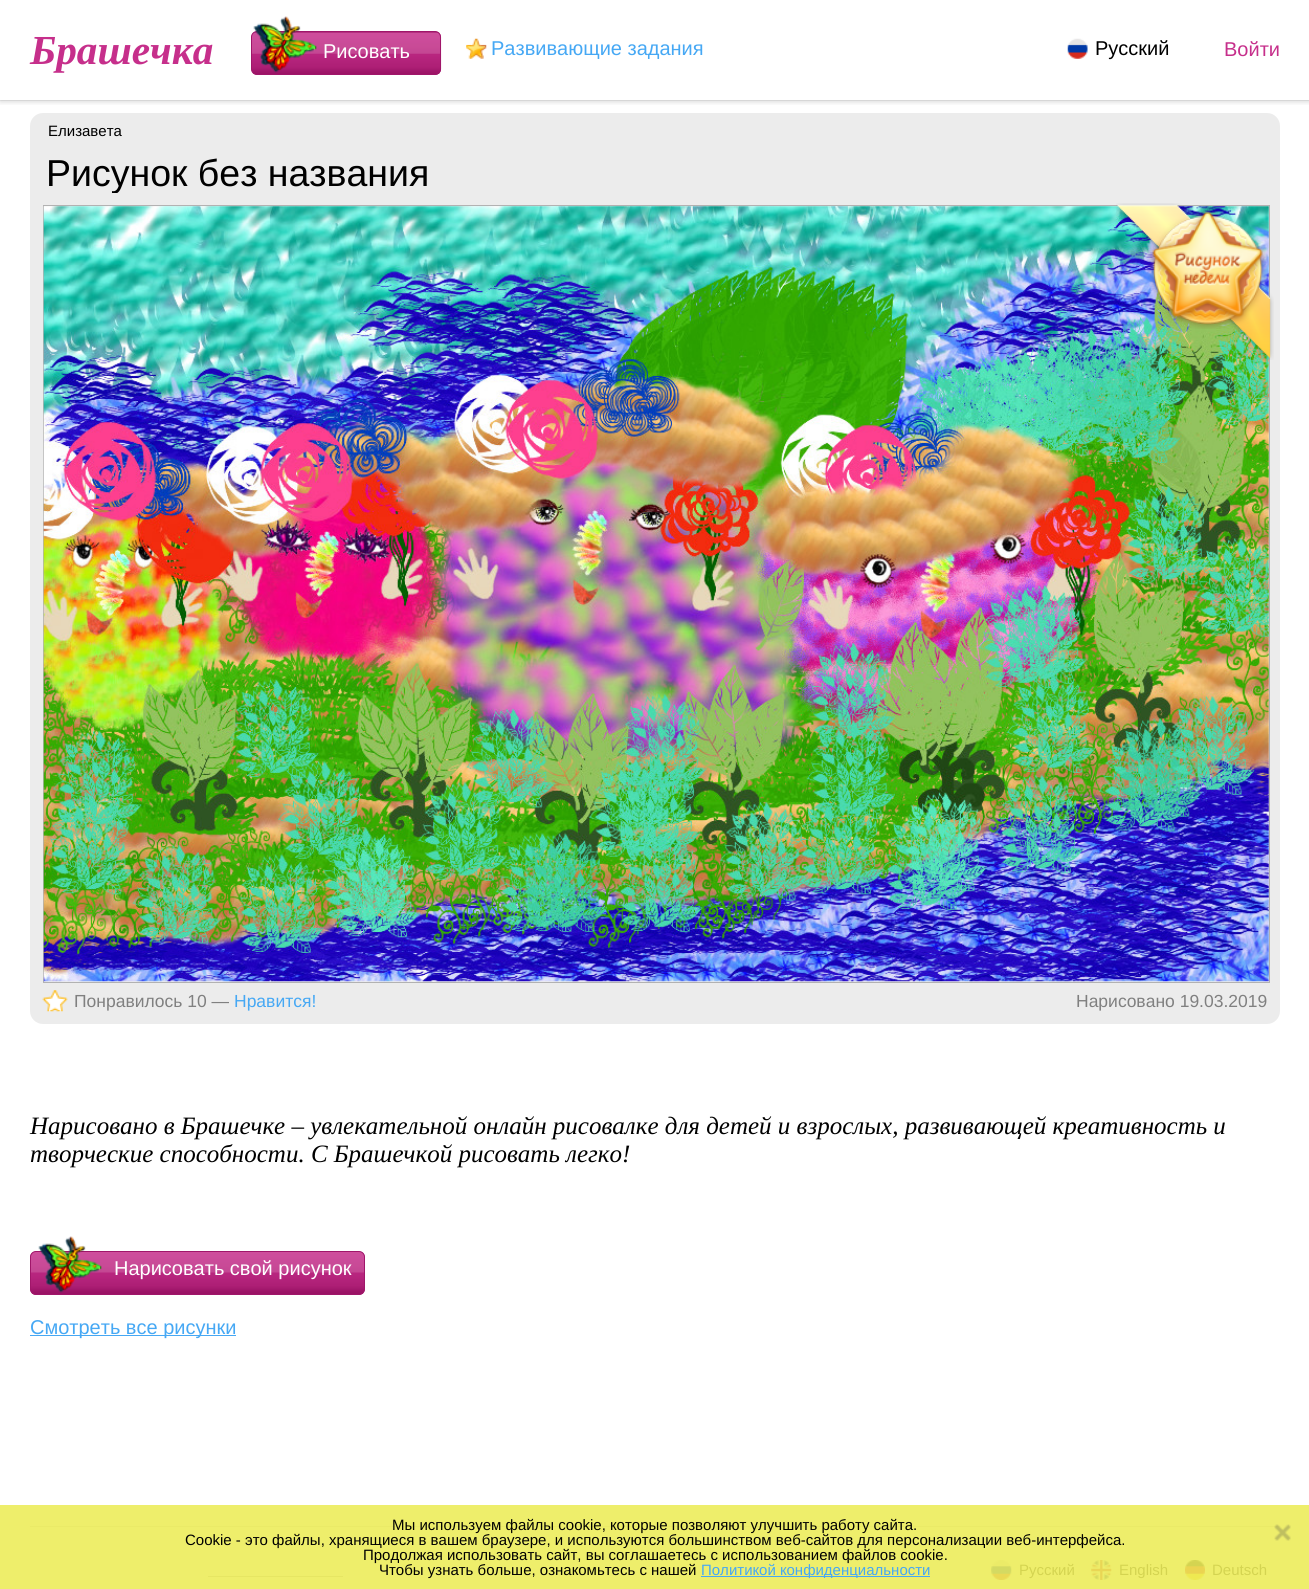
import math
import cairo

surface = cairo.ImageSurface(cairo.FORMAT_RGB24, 1309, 1589)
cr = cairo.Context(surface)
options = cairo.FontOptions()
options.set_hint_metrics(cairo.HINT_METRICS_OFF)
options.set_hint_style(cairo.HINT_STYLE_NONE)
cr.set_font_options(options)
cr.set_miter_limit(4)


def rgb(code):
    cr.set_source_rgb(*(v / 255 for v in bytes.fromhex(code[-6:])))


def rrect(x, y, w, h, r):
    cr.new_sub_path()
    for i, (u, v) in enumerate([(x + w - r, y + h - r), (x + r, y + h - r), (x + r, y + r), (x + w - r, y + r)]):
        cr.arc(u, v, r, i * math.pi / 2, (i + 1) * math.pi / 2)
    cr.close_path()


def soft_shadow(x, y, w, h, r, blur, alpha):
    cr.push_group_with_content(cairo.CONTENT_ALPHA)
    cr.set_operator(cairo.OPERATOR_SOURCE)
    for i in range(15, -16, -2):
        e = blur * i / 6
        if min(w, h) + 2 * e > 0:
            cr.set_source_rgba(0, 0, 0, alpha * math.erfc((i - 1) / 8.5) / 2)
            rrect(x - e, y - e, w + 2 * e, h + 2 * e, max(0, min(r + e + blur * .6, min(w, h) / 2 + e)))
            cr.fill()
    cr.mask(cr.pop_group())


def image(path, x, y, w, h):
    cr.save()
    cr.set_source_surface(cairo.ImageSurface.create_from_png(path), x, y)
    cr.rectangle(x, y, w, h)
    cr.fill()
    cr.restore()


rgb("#ffffff")
cr.paint()
rgb("#eeee6b")
cr.rectangle(0, 1505, 1309, 84)
cr.fill()
cr.save()
cr.rectangle(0, 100, 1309, 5)
cr.clip()
rgb("#000000")
soft_shadow(0, 1, 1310, 100, 0, 3, 0.2)
cr.restore()
cr.set_source_rgba(0, 0, 0, 0.05)
cr.rectangle(0, 100, 1309, 1)
cr.fill()
image("img/1.png", 251, 31, 191, 44)
rrect(251.5, 31.5, 189, 43, 5.5)
rgb("#a0166a")
cr.set_line_width(1)
cr.stroke()
image("img/2.png", 253, 16, 64, 57)
image("img/3.png", 466, 38, 21, 21)
image("img/4.png", 1067, 38, 21, 21)
rgb("#ececec")
rrect(30, 113, 1250, 911, 13)
cr.fill()
cr.rectangle(43.5, 205.5, 1226, 777)
rgb("#b2b2b2")
cr.stroke()
image("img/6.png", 43, 206, 1226, 776)
image("img/5.png", 1116, 203, 158, 157)
image("img/7.png", 42, 990, 26, 22)
image("img/8.png", 30, 1251, 335, 44)
rrect(30.5, 1251.5, 334, 43, 5.5)
rgb("#a0166a")
cr.stroke()
image("img/9.png", 38, 1236, 64, 57)
for x, y, w, h, color in [
    (30, 1335, 206, 1, "#46a8f4"),
    (30, 1526, 1250, 1, "#eaea67"),
    (208, 1576, 135, 1, "#e6e663"),
]:
    rgb(color)
    cr.rectangle(x, y, w, h)
    cr.fill()
image("img/10.png", 991, 1560, 21, 20)
image("img/11.png", 1091, 1560, 21, 20)
image("img/12.png", 1185, 1560, 20, 20)
rgb("#46a8f4")
cr.rectangle(701, 1576, 229, 1)
cr.fill()
image("img/13.png", 1274, 1524, 17, 17)
cr.select_font_face("Liberation Serif", cairo.FONT_SLANT_ITALIC, cairo.FONT_WEIGHT_BOLD)
cr.set_font_size(41.25)
rgb("#c62f8b")
cr.move_to(30, 64)
cr.show_text("Брашечка")
cr.select_font_face("Liberation Sans")
cr.set_font_size(20)
rgb("#ffffff")
cr.move_to(323, 58)
cr.show_text("Рисовать")
rgb("#46a8f4")
cr.move_to(491, 55)
cr.show_text("Развивающие задания")
rgb("#000000")
cr.move_to(1095, 55)
cr.show_text("Русский")
rgb("#c62f8b")
cr.move_to(1224, 56)
cr.show_text("Войти")
cr.set_font_size(15)
rgb("#000000")
cr.move_to(48, 136)
cr.show_text("Елизавета")
cr.save()
rrect(44, 153, 535, 40, 2.5)
cr.clip()
cr.set_font_size(37.5)
cr.move_to(46, 186)
cr.show_text("Рисунок без названия")
cr.restore()
cr.set_font_size(17.5)
rgb("#808080")
cr.move_to(74, 1007)
cr.show_text("Понравилось 10 —")
rgb("#46a8f4")
cr.move_to(234, 1007)
cr.show_text("Нравится!")
rgb("#808080")
cr.move_to(1076, 1007)
cr.show_text("Нарисовано 19.03.2019")
cr.select_font_face("Liberation Serif", cairo.FONT_SLANT_ITALIC)
cr.set_font_size(25)
rgb("#000000")
cr.move_to(30, 1134)
cr.show_text("Нарисовано в Брашечке – увлекательной онлайн рисовалке для детей и взрослых, развивающей креативность и")
cr.move_to(30, 1162)
cr.show_text("творческие способности. С Брашечкой рисовать легко!")
cr.select_font_face("Liberation Sans")
cr.set_font_size(20)
rgb("#ffffff")
cr.move_to(114, 1275)
cr.show_text("Нарисовать свой рисунок")
rgb("#46a8f4")
cr.move_to(30, 1334)
cr.show_text("Смотреть все рисунки")
cr.set_font_size(15)
rgb("#d4d451")
for x, y, s in [
    (1019, 1575, "Русский"),
    (1119, 1575, "English"),
    (1212, 1575, "Deutsch"),
]:
    cr.move_to(x, y)
    cr.show_text(s)
rgb("#000000")
for x, y, s in [
    (392, 1530, "Мы используем файлы cookie, которые позволяют улучшить работу сайта."),
    (185, 1545, "Cookie - это файлы, хранящиеся в вашем браузере, и используются большинством веб-сайтов для персонализации веб-интерфейса."),
    (363, 1560, "Продолжая использовать сайт, вы соглашаетесь с использованием файлов cookie."),
    (379, 1575, "Чтобы узнать больше, ознакомьтесь с нашей"),
]:
    cr.move_to(x, y)
    cr.show_text(s)
rgb("#46a8f4")
cr.move_to(701, 1575)
cr.show_text("Политикой конфиденциальности")
surface.write_to_png("page.png")
